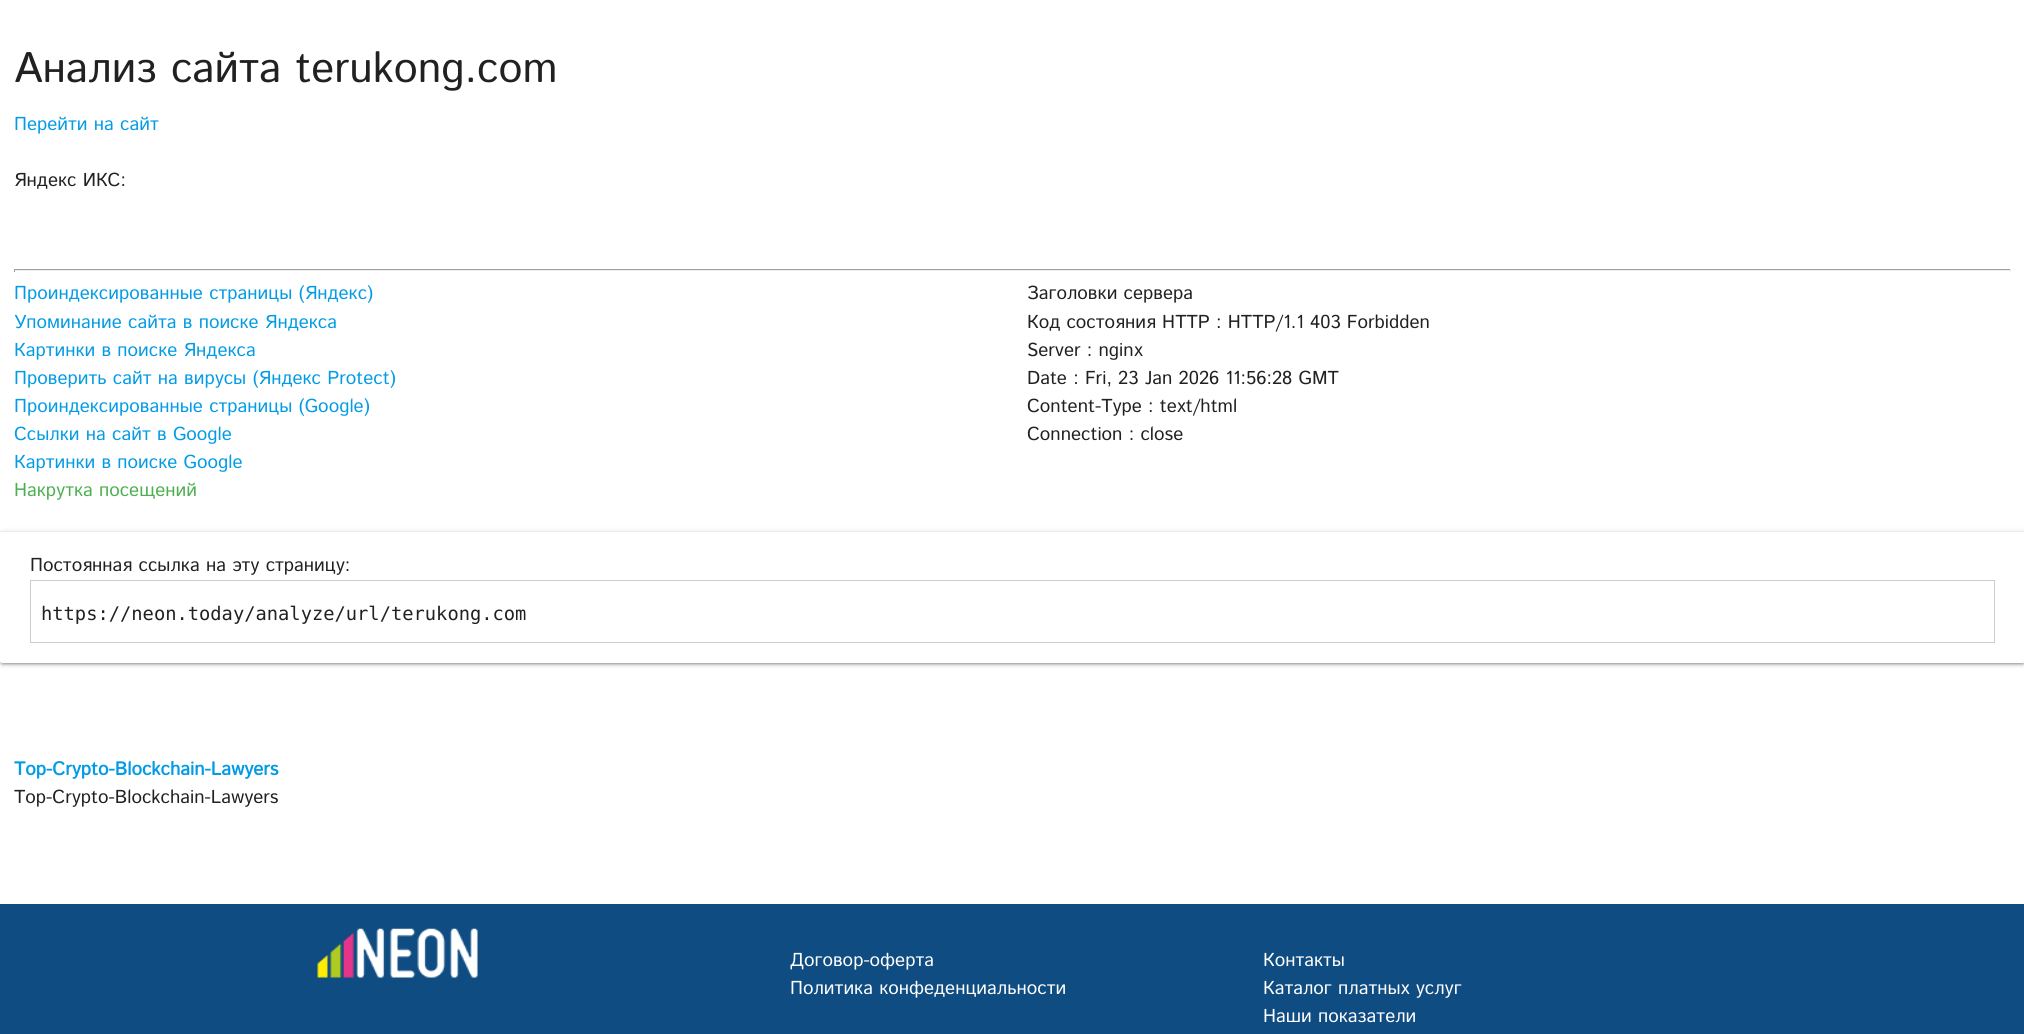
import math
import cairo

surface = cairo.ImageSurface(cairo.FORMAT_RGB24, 2024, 1034)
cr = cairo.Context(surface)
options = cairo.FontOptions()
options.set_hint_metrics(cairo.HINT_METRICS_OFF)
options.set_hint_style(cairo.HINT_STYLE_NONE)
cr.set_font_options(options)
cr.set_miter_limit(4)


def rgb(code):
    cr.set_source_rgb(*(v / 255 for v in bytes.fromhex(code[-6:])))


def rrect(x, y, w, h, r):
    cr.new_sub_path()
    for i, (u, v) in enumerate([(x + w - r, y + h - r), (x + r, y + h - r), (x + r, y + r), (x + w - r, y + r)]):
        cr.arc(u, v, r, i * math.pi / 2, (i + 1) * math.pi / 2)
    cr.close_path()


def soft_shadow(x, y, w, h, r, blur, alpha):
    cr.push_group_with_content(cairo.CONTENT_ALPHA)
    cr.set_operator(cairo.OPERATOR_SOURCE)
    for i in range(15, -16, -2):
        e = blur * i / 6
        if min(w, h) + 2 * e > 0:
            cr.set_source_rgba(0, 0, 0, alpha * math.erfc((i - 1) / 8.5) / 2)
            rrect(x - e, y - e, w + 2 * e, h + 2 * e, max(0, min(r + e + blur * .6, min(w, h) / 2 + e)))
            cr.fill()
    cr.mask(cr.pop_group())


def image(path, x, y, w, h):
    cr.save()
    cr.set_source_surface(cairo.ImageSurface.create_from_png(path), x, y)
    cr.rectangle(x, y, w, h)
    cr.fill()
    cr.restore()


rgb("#ffffff")
cr.paint()
for x, y, w, h, color in [
    (14, 269, 1997, 1, "#9f9f9f"),
    (2010, 269, 1, 3, "#eeeeee"),
    (14, 270, 1997, 1, "#eeeeee"),
    (14, 269, 1, 3, "#9f9f9f"),
]:
    rgb(color)
    cr.rectangle(x, y, w, h)
    cr.fill()
rgb("#000000")
soft_shadow(0, 533, 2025, 131, 2.5, 3, 0.2)
soft_shadow(3, 538, 2020, 126, 0, 0.5, 0.12)
soft_shadow(0, 534, 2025, 131, 2.5, 1, 0.14)
rgb("#ffffff")
cr.new_path()
cr.move_to(0, 531)
cr.line_to(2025, 531)
cr.line_to(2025, 660.5)
cr.curve_to(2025, 662, 2024, 663, 2022.5, 663)
cr.line_to(2.5, 663)
cr.curve_to(1, 663, 0, 662, 0, 660.5)
cr.close_path()
cr.fill()
rgb("#ececec")
cr.rectangle(0, 531, 2024, 1)
cr.fill()
cr.rectangle(30.5, 580.5, 1964, 62)
rgb("#cccccc")
cr.set_line_width(1)
cr.stroke()
rgb("#0f4c81")
cr.rectangle(0, 904, 2024, 130)
cr.fill()
image("img/1.png", 317, 928, 161, 50)
cr.select_font_face("Istok Web")
cr.set_font_size(42.75)
rgb("#212121")
cr.move_to(14, 82)
cr.show_text("Анализ сайта terukong.com")
cr.set_font_size(18.75)
rgb("#039be5")
cr.move_to(14, 130)
cr.show_text("Перейти на сайт")
rgb("#212121")
cr.move_to(14, 186)
cr.show_text("Яндекс ИКС:")
rgb("#039be5")
for x, y, s in [
    (14, 299, "Проиндексированные страницы (Яндекс)"),
    (14, 328, "Упоминание сайта в поиске Яндекса"),
    (14, 356, "Картинки в поиске Яндекса"),
    (14, 384, "Проверить сайт на вирусы (Яндекс Protect)"),
    (14, 412, "Проиндексированные страницы (Google)"),
    (14, 440, "Ссылки на сайт в Google"),
    (14, 468, "Картинки в поиске Google"),
]:
    cr.move_to(x, y)
    cr.show_text(s)
rgb("#4caf50")
cr.move_to(14, 496)
cr.show_text("Накрутка посещений")
rgb("#212121")
for x, y, s in [
    (1027, 299, "Заголовки сервера"),
    (1027, 328, "Код состояния HTTP : HTTP/1.1 403 Forbidden"),
    (1027, 356, "Server : nginx"),
    (1027, 384, "Date : Fri, 23 Jan 2026 11:56:28 GMT"),
    (1027, 412, "Content-Type : text/html"),
    (1027, 440, "Connection : close"),
    (30, 571, "Постоянная ссылка на эту страницу:"),
]:
    cr.move_to(x, y)
    cr.show_text(s)
cr.select_font_face("DejaVu Sans Mono")
cr.move_to(41, 620)
cr.show_text("https://neon.today/analyze/url/terukong.com")
cr.select_font_face("Istok Web", cairo.FONT_SLANT_NORMAL, cairo.FONT_WEIGHT_BOLD)
rgb("#039be5")
cr.move_to(14, 775)
cr.show_text("Top-Crypto-Blockchain-Lawyers")
cr.select_font_face("Istok Web")
rgb("#212121")
cr.move_to(14, 803)
cr.show_text("Top-Crypto-Blockchain-Lawyers")
rgb("#ffffff")
for x, y, s in [
    (790, 966, "Договор-оферта"),
    (790, 994, "Политика конфеденциальности"),
    (1263, 966, "Контакты"),
    (1263, 994, "Каталог платных услуг"),
    (1263, 1022, "Наши показатели"),
]:
    cr.move_to(x, y)
    cr.show_text(s)
surface.write_to_png("page.png")
